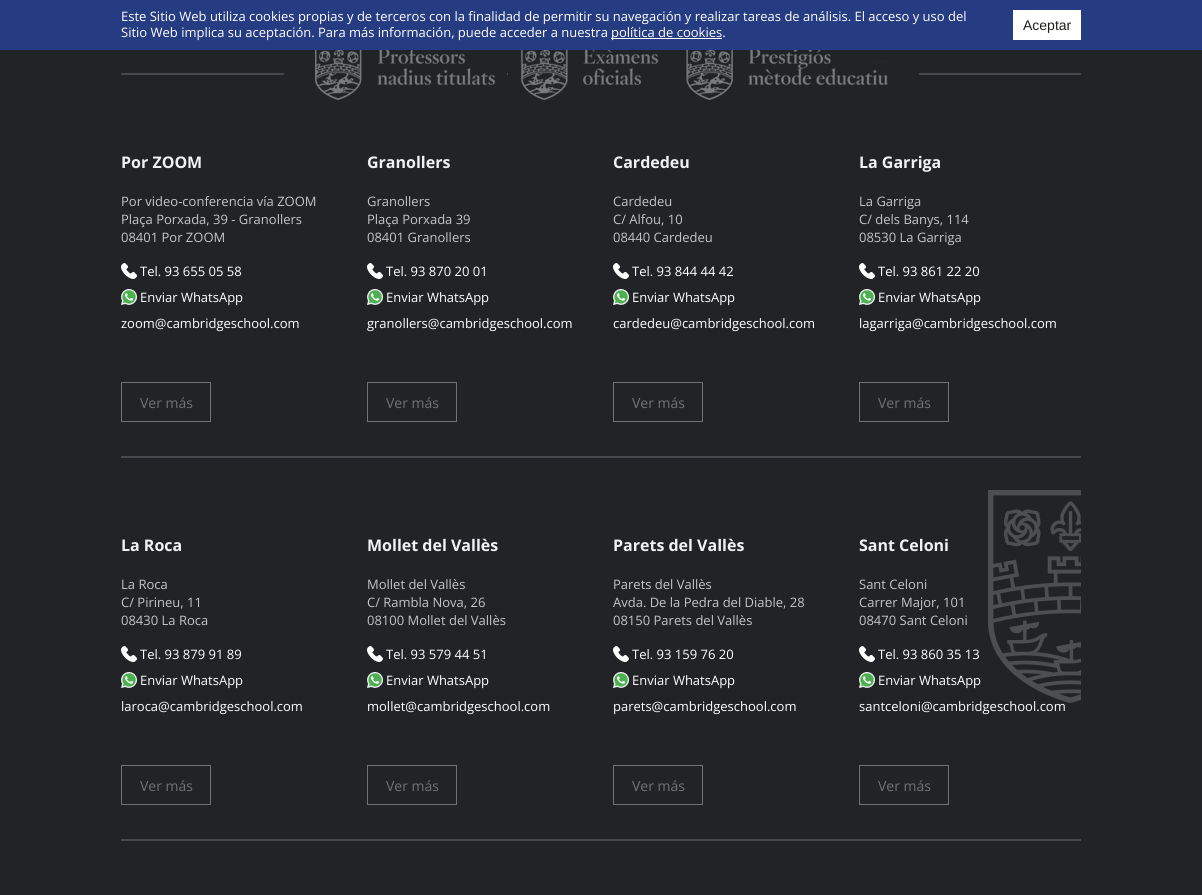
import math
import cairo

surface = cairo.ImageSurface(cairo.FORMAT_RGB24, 1202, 895)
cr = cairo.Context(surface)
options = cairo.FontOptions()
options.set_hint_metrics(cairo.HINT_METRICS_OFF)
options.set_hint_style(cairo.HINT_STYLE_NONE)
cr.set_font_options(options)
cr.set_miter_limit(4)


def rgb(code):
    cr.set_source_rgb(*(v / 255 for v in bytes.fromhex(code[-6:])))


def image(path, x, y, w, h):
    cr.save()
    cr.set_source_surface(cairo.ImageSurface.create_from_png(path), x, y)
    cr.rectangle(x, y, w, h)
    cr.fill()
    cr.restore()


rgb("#212327")
cr.paint()
for x, y, w, h, color in [
    (0, 0, 1202, 50, "#253c82"),
    (611, 38, 111, 1, "#ffffff"),
    (1013, 10, 68, 30, "#ffffff"),
]:
    rgb(color)
    cr.rectangle(x, y, w, h)
    cr.fill()
image("img/1.png", 988, 490, 93, 213)
rgb("#47484d")
cr.rectangle(121, 73, 960, 2)
cr.fill()
image("img/2.png", 283, 50, 224, 50)
image("img/3.png", 508, 50, 163, 50)
image("img/4.png", 671, 50, 248, 50)
cr.rectangle(121, 456, 960, 2)
cr.fill()
image("img/5.png", 121, 263, 16, 16)
image("img/6.png", 121, 289, 16, 16)
cr.rectangle(121.5, 382.5, 89, 39)
rgb("#727272")
cr.set_line_width(1)
cr.stroke()
image("img/5.png", 367, 263, 16, 16)
image("img/6.png", 367, 289, 16, 16)
cr.rectangle(367.5, 382.5, 89, 39)
cr.stroke()
image("img/5.png", 613, 263, 16, 16)
image("img/6.png", 613, 289, 16, 16)
cr.rectangle(613.5, 382.5, 89, 39)
cr.stroke()
image("img/5.png", 859, 263, 16, 16)
image("img/6.png", 859, 289, 16, 16)
cr.rectangle(859.5, 382.5, 89, 39)
cr.stroke()
rgb("#47484d")
cr.rectangle(121, 839, 960, 2)
cr.fill()
image("img/5.png", 121, 646, 16, 16)
image("img/6.png", 121, 672, 16, 16)
cr.rectangle(121.5, 765.5, 89, 39)
rgb("#727272")
cr.stroke()
image("img/5.png", 367, 646, 16, 16)
image("img/6.png", 367, 672, 16, 16)
cr.rectangle(367.5, 765.5, 89, 39)
cr.stroke()
image("img/5.png", 613, 646, 16, 16)
image("img/6.png", 613, 672, 16, 16)
cr.rectangle(613.5, 765.5, 89, 39)
cr.stroke()
image("img/5.png", 859, 646, 16, 16)
image("img/6.png", 859, 672, 16, 16)
cr.rectangle(859.5, 765.5, 89, 39)
cr.stroke()
cr.select_font_face("Open Sans")
cr.set_font_size(13)
rgb("#ffffff")
for x, y, s in [
    (121, 21, "Este Sitio Web utiliza cookies propias y de terceros con la finalidad de permitir su navegación y realizar tareas de análisis. El acceso y uso del"),
    (121, 37, "Sitio Web implica su aceptación. Para más información, puede acceder a nuestra"),
    (611, 37, "política de cookies."),
]:
    cr.move_to(x, y)
    cr.show_text(s)
cr.select_font_face("Liberation Sans")
cr.set_font_size(14)
rgb("#1d1d1b")
cr.move_to(1023, 30)
cr.show_text("Aceptar")
cr.select_font_face("Open Sans", cairo.FONT_SLANT_NORMAL, cairo.FONT_WEIGHT_BOLD)
cr.set_font_size(16)
rgb("#f0f1f5")
cr.move_to(121, 168)
cr.show_text("Por ZOOM")
cr.select_font_face("Open Sans")
cr.set_font_size(13)
rgb("#c5c5c5")
for x, y, s in [
    (121, 206, "Por video-conferencia vía ZOOM"),
    (121, 224, "Plaça Porxada, 39 - Granollers"),
    (121, 242, "08401 Por ZOOM"),
]:
    cr.move_to(x, y)
    cr.show_text(s)
rgb("#ffffff")
for x, y, s in [
    (140, 276, "Tel. 93 655 05 58"),
    (140, 302, "Enviar WhatsApp"),
    (121, 328, "zoom@cambridgeschool.com"),
]:
    cr.move_to(x, y)
    cr.show_text(s)
cr.set_font_size(14)
rgb("#727272")
cr.move_to(140, 408)
cr.show_text("Ver más")
cr.select_font_face("Open Sans", cairo.FONT_SLANT_NORMAL, cairo.FONT_WEIGHT_BOLD)
cr.set_font_size(16)
rgb("#f0f1f5")
cr.move_to(367, 168)
cr.show_text("Granollers")
cr.select_font_face("Open Sans")
cr.set_font_size(13)
rgb("#c5c5c5")
for x, y, s in [
    (367, 206, "Granollers"),
    (367, 224, "Plaça Porxada 39"),
    (367, 242, "08401 Granollers"),
]:
    cr.move_to(x, y)
    cr.show_text(s)
rgb("#ffffff")
for x, y, s in [
    (386, 276, "Tel. 93 870 20 01"),
    (386, 302, "Enviar WhatsApp"),
    (367, 328, "granollers@cambridgeschool.com"),
]:
    cr.move_to(x, y)
    cr.show_text(s)
cr.set_font_size(14)
rgb("#727272")
cr.move_to(386, 408)
cr.show_text("Ver más")
cr.select_font_face("Open Sans", cairo.FONT_SLANT_NORMAL, cairo.FONT_WEIGHT_BOLD)
cr.set_font_size(16)
rgb("#f0f1f5")
cr.move_to(613, 168)
cr.show_text("Cardedeu")
cr.select_font_face("Open Sans")
cr.set_font_size(13)
rgb("#c5c5c5")
for x, y, s in [
    (613, 206, "Cardedeu"),
    (613, 224, "C/ Alfou, 10"),
    (613, 242, "08440 Cardedeu"),
]:
    cr.move_to(x, y)
    cr.show_text(s)
rgb("#ffffff")
for x, y, s in [
    (632, 276, "Tel. 93 844 44 42"),
    (632, 302, "Enviar WhatsApp"),
    (613, 328, "cardedeu@cambridgeschool.com"),
]:
    cr.move_to(x, y)
    cr.show_text(s)
cr.set_font_size(14)
rgb("#727272")
cr.move_to(632, 408)
cr.show_text("Ver más")
cr.select_font_face("Open Sans", cairo.FONT_SLANT_NORMAL, cairo.FONT_WEIGHT_BOLD)
cr.set_font_size(16)
rgb("#f0f1f5")
cr.move_to(859, 168)
cr.show_text("La Garriga")
cr.select_font_face("Open Sans")
cr.set_font_size(13)
rgb("#c5c5c5")
for x, y, s in [
    (859, 206, "La Garriga"),
    (859, 224, "C/ dels Banys, 114"),
    (859, 242, "08530 La Garriga"),
]:
    cr.move_to(x, y)
    cr.show_text(s)
rgb("#ffffff")
for x, y, s in [
    (878, 276, "Tel. 93 861 22 20"),
    (878, 302, "Enviar WhatsApp"),
    (859, 328, "lagarriga@cambridgeschool.com"),
]:
    cr.move_to(x, y)
    cr.show_text(s)
cr.set_font_size(14)
rgb("#727272")
cr.move_to(878, 408)
cr.show_text("Ver más")
cr.select_font_face("Open Sans", cairo.FONT_SLANT_NORMAL, cairo.FONT_WEIGHT_BOLD)
cr.set_font_size(16)
rgb("#f0f1f5")
cr.move_to(121, 551)
cr.show_text("La Roca")
cr.select_font_face("Open Sans")
cr.set_font_size(13)
rgb("#c5c5c5")
for x, y, s in [
    (121, 589, "La Roca"),
    (121, 607, "C/ Pirineu, 11"),
    (121, 625, "08430 La Roca"),
]:
    cr.move_to(x, y)
    cr.show_text(s)
rgb("#ffffff")
for x, y, s in [
    (140, 659, "Tel. 93 879 91 89"),
    (140, 685, "Enviar WhatsApp"),
    (121, 711, "laroca@cambridgeschool.com"),
]:
    cr.move_to(x, y)
    cr.show_text(s)
cr.set_font_size(14)
rgb("#727272")
cr.move_to(140, 791)
cr.show_text("Ver más")
cr.select_font_face("Open Sans", cairo.FONT_SLANT_NORMAL, cairo.FONT_WEIGHT_BOLD)
cr.set_font_size(16)
rgb("#f0f1f5")
cr.move_to(367, 551)
cr.show_text("Mollet del Vallès")
cr.select_font_face("Open Sans")
cr.set_font_size(13)
rgb("#c5c5c5")
for x, y, s in [
    (367, 589, "Mollet del Vallès"),
    (367, 607, "C/ Rambla Nova, 26"),
    (367, 625, "08100 Mollet del Vallès"),
]:
    cr.move_to(x, y)
    cr.show_text(s)
rgb("#ffffff")
for x, y, s in [
    (386, 659, "Tel. 93 579 44 51"),
    (386, 685, "Enviar WhatsApp"),
    (367, 711, "mollet@cambridgeschool.com"),
]:
    cr.move_to(x, y)
    cr.show_text(s)
cr.set_font_size(14)
rgb("#727272")
cr.move_to(386, 791)
cr.show_text("Ver más")
cr.select_font_face("Open Sans", cairo.FONT_SLANT_NORMAL, cairo.FONT_WEIGHT_BOLD)
cr.set_font_size(16)
rgb("#f0f1f5")
cr.move_to(613, 551)
cr.show_text("Parets del Vallès")
cr.select_font_face("Open Sans")
cr.set_font_size(13)
rgb("#c5c5c5")
for x, y, s in [
    (613, 589, "Parets del Vallès"),
    (613, 607, "Avda. De la Pedra del Diable, 28"),
    (613, 625, "08150 Parets del Vallès"),
]:
    cr.move_to(x, y)
    cr.show_text(s)
rgb("#ffffff")
for x, y, s in [
    (632, 659, "Tel. 93 159 76 20"),
    (632, 685, "Enviar WhatsApp"),
    (613, 711, "parets@cambridgeschool.com"),
]:
    cr.move_to(x, y)
    cr.show_text(s)
cr.set_font_size(14)
rgb("#727272")
cr.move_to(632, 791)
cr.show_text("Ver más")
cr.select_font_face("Open Sans", cairo.FONT_SLANT_NORMAL, cairo.FONT_WEIGHT_BOLD)
cr.set_font_size(16)
rgb("#f0f1f5")
cr.move_to(859, 551)
cr.show_text("Sant Celoni")
cr.select_font_face("Open Sans")
cr.set_font_size(13)
rgb("#c5c5c5")
for x, y, s in [
    (859, 589, "Sant Celoni"),
    (859, 607, "Carrer Major, 101"),
    (859, 625, "08470 Sant Celoni"),
]:
    cr.move_to(x, y)
    cr.show_text(s)
rgb("#ffffff")
for x, y, s in [
    (878, 659, "Tel. 93 860 35 13"),
    (878, 685, "Enviar WhatsApp"),
    (859, 711, "santceloni@cambridgeschool.com"),
]:
    cr.move_to(x, y)
    cr.show_text(s)
cr.set_font_size(14)
rgb("#727272")
cr.move_to(878, 791)
cr.show_text("Ver más")
surface.write_to_png("page.png")
